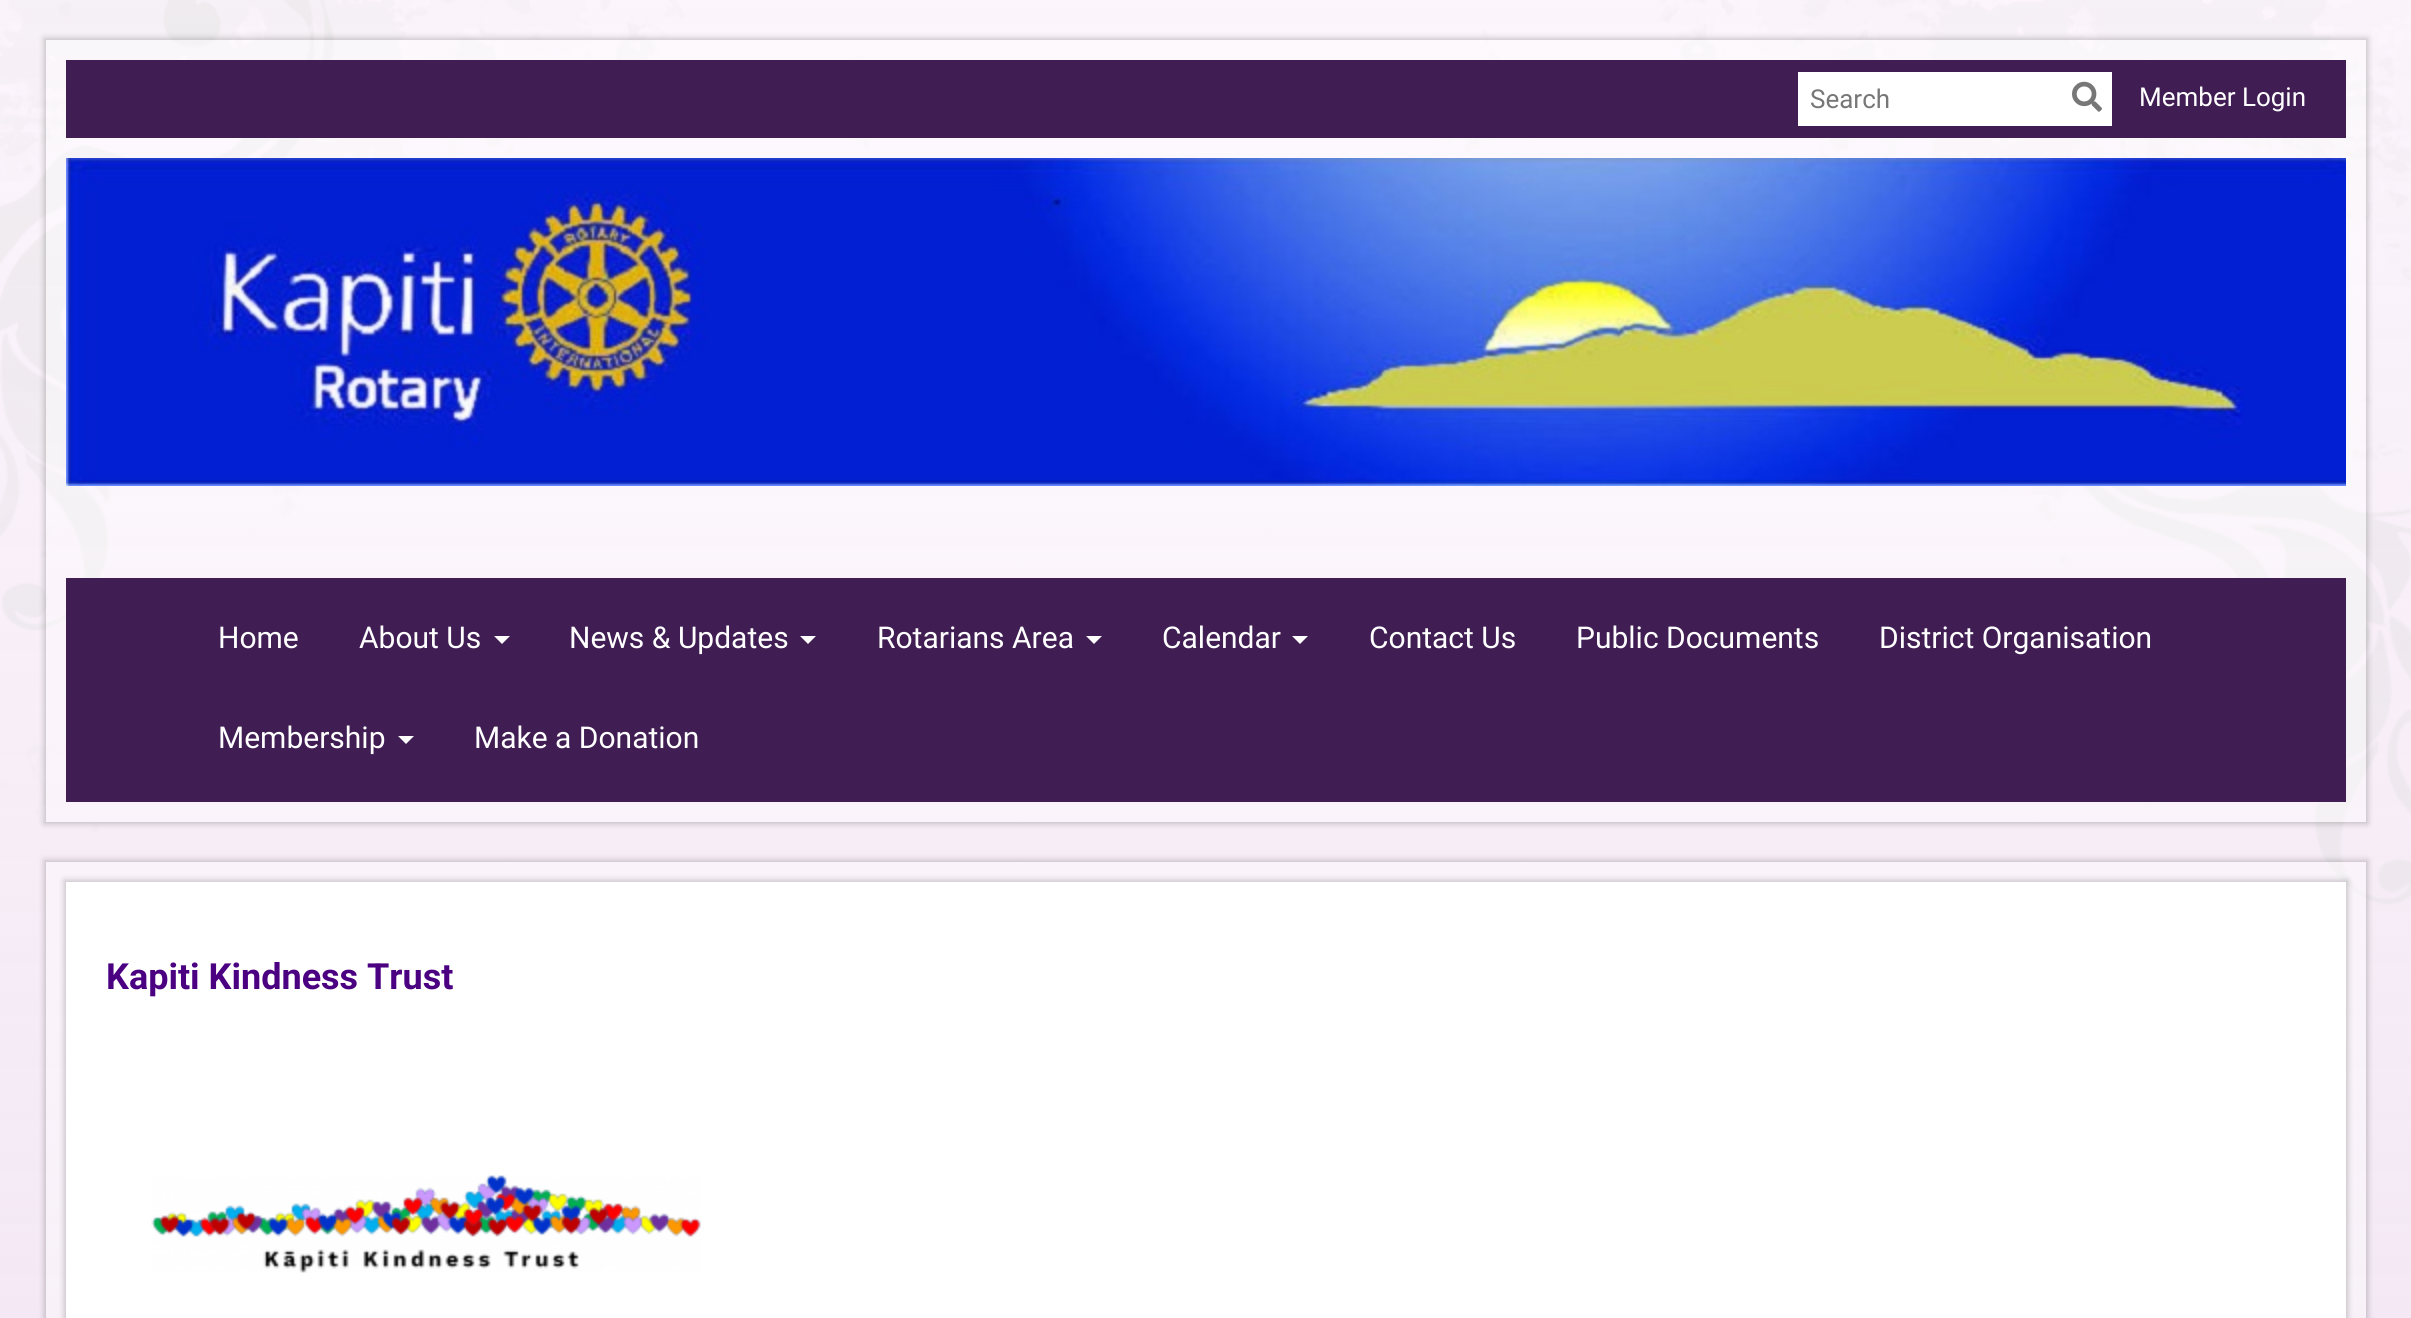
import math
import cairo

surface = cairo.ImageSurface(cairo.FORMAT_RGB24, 2411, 1318)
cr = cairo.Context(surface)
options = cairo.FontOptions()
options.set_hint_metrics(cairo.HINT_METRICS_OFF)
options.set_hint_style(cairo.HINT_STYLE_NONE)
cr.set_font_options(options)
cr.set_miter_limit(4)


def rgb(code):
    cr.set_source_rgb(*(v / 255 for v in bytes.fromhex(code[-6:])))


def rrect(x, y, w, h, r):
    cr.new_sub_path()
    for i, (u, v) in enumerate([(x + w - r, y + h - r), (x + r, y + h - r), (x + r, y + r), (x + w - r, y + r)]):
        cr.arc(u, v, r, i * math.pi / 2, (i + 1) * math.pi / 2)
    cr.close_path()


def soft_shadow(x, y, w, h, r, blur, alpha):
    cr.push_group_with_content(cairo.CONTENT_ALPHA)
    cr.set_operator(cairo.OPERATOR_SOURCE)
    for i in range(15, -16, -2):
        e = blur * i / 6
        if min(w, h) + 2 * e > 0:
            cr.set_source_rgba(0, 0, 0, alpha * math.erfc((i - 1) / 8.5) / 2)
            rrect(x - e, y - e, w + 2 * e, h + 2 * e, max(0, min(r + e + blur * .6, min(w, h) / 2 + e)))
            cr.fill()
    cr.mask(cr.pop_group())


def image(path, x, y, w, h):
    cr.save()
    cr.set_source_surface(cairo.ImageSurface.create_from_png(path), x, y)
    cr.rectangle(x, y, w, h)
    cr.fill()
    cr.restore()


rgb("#ffffff")
cr.paint()
image("img/1.png", 0, 0, 2411, 1318)
cr.save()
cr.set_fill_rule(cairo.FILL_RULE_EVEN_ODD)
cr.new_path()
cr.move_to(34, 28)
cr.line_to(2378, 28)
cr.line_to(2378, 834)
cr.line_to(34, 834)
cr.close_path()
cr.move_to(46, 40)
cr.line_to(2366, 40)
cr.line_to(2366, 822)
cr.line_to(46, 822)
cr.close_path()
cr.clip()
rgb("#000000")
soft_shadow(44, 38, 2324, 786, 0, 3, 0.2)
cr.restore()
cr.set_source_rgba(1, 1, 1, 0.4)
cr.rectangle(46, 40, 2320, 782)
cr.fill()
rgb("#401d53")
cr.rectangle(66, 60, 2280, 78)
cr.fill()
rgb("#ffffff")
cr.rectangle(1798, 72, 314, 54)
cr.fill()
image("img/2.png", 2072, 81, 30, 31)
image("img/3.png", 66, 158, 2280, 328)
rgb("#401d53")
cr.rectangle(66, 578, 2280, 224)
cr.fill()
rgb("#ffffff")
cr.new_path()
cr.move_to(494, 636)
cr.line_to(510, 636)
cr.line_to(502, 644)
cr.close_path()
cr.fill()
cr.new_path()
cr.move_to(800, 636)
cr.line_to(816, 636)
cr.line_to(808, 644)
cr.close_path()
cr.fill()
cr.new_path()
cr.move_to(1086, 636)
cr.line_to(1102, 636)
cr.line_to(1094, 644)
cr.close_path()
cr.fill()
cr.new_path()
cr.move_to(1292, 636)
cr.line_to(1308, 636)
cr.line_to(1300, 644)
cr.close_path()
cr.fill()
cr.new_path()
cr.move_to(398, 736)
cr.line_to(414, 736)
cr.line_to(406, 744)
cr.close_path()
cr.fill()
cr.save()
cr.set_fill_rule(cairo.FILL_RULE_EVEN_ODD)
cr.new_path()
cr.move_to(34, 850)
cr.line_to(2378, 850)
cr.line_to(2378, 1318)
cr.line_to(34, 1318)
cr.close_path()
cr.move_to(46, 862)
cr.line_to(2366, 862)
cr.line_to(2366, 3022)
cr.line_to(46, 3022)
cr.close_path()
cr.clip()
rgb("#000000")
soft_shadow(44, 860, 2324, 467, 0, 3, 0.2)
cr.restore()
cr.set_source_rgba(1, 1, 1, 0.4)
cr.rectangle(46, 862, 2320, 456)
cr.fill()
rgb("#000000")
soft_shadow(64, 880, 2284, 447, 0, 3, 0.2)
rgb("#ffffff")
cr.rectangle(66, 882, 2280, 436)
cr.fill()
image("img/4.png", 151, 1175, 550, 98)
cr.select_font_face("Roboto")
cr.set_font_size(26)
rgb("#777777")
cr.move_to(1810, 108)
cr.show_text("Search")
rgb("#ffffff")
cr.move_to(2139, 106)
cr.show_text("Member Login")
cr.set_font_size(30)
for x, y, s in [
    (218, 648, "Home"),
    (359, 648, "About Us"),
    (569, 648, "News & Updates"),
    (877, 648, "Rotarians Area"),
    (1162, 648, "Calendar"),
    (1369, 648, "Contact Us"),
    (1576, 648, "Public Documents"),
    (1879, 648, "District Organisation"),
    (218, 748, "Membership"),
    (474, 748, "Make a Donation"),
]:
    cr.move_to(x, y)
    cr.show_text(s)
cr.select_font_face("Roboto", cairo.FONT_SLANT_NORMAL, cairo.FONT_WEIGHT_BOLD)
cr.set_font_size(36)
rgb("#4b0082")
cr.move_to(106, 989)
cr.show_text("Kapiti Kindness Trust")
surface.write_to_png("page.png")
